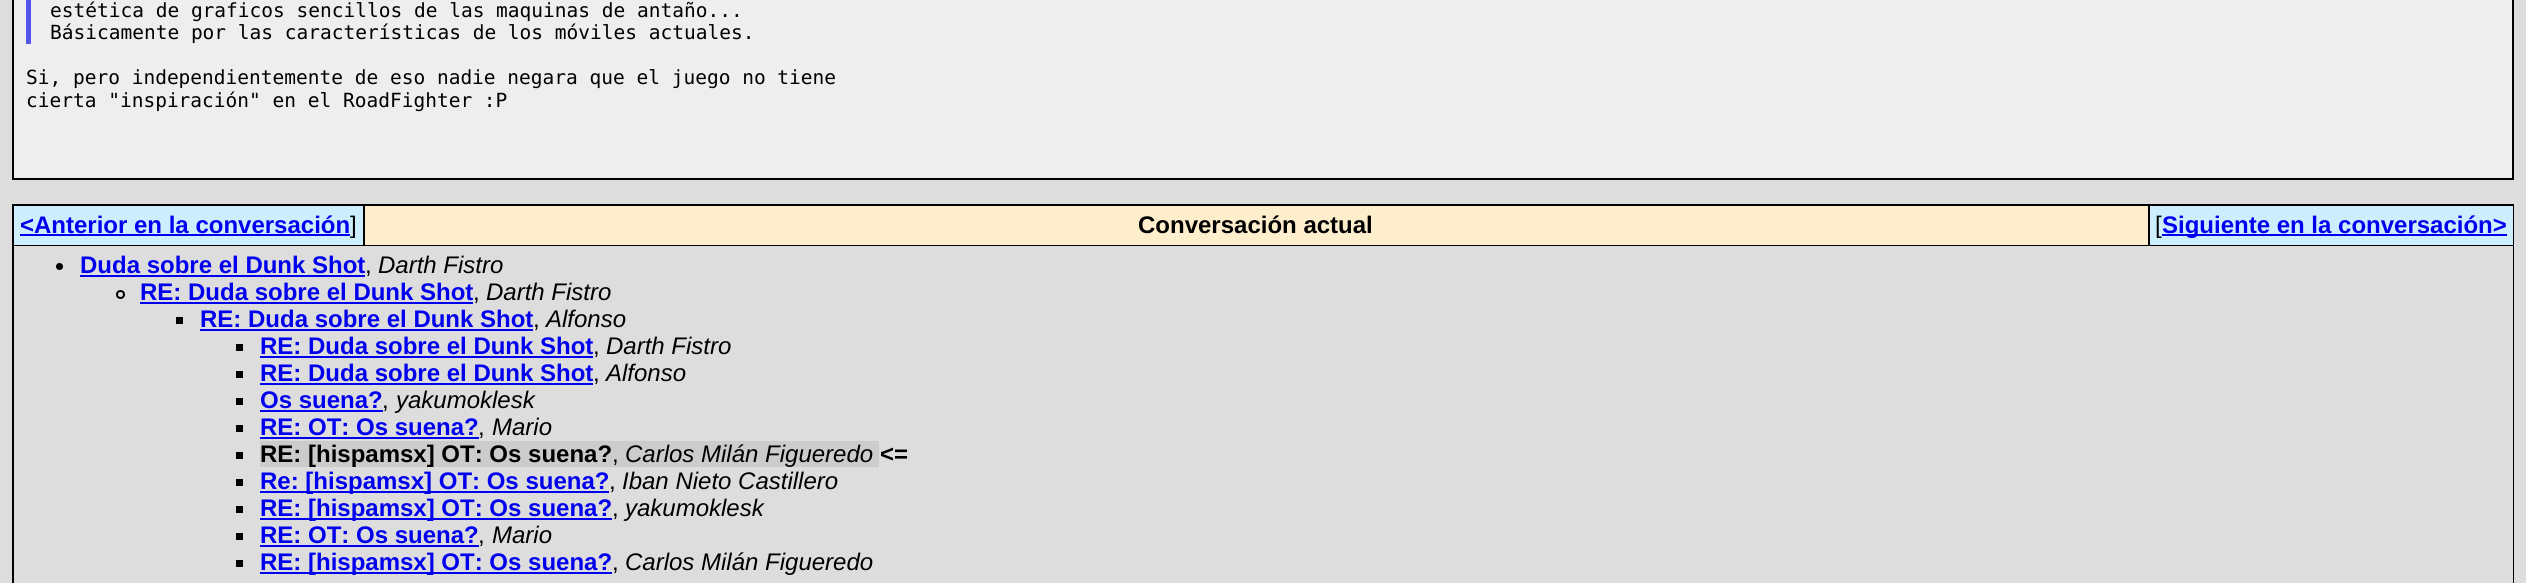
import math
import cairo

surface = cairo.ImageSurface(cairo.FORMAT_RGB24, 2526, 583)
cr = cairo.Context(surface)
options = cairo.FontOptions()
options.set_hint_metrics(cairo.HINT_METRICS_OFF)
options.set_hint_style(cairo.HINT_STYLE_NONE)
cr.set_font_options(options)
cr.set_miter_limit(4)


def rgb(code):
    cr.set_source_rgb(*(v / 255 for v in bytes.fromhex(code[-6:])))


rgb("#dddddd")
cr.paint()
rgb("#eeeeee")
cr.rectangle(13, -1, 2500, 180)
cr.fill_preserve()
rgb("#000000")
cr.stroke()
for x, y, w, h, color in [
    (26, 0, 5, 44, "#5555ee"),
    (12, 204, 2502, 379, "#000000"),
    (14, 206, 349, 39, "#cceeff"),
    (20, 234, 330, 2, "#0000ee"),
    (365, 206, 1783, 39, "#ffeecc"),
    (2150, 206, 363, 39, "#cceeff"),
    (2162, 234, 345, 2, "#0000ee"),
    (14, 246, 2499, 337, "#dddddd"),
]:
    rgb(color)
    cr.rectangle(x, y, w, h)
    cr.fill()
rgb("#000000")
cr.arc(59.5, 266.5, 3.5, 0, 2 * math.pi)
cr.fill()
rgb("#0000ee")
cr.rectangle(80, 275, 285, 2)
cr.fill()
cr.arc(120.5, 294.5, 3.5, 0, 2 * math.pi)
rgb("#000000")
cr.stroke()
for x, y, w, h, color in [
    (140, 302, 333, 2, "#0000ee"),
    (176, 317, 7, 7, "#000000"),
    (200, 329, 333, 2, "#0000ee"),
    (236, 344, 7, 7, "#000000"),
    (260, 356, 333, 2, "#0000ee"),
    (236, 371, 7, 7, "#000000"),
    (260, 383, 333, 2, "#0000ee"),
    (236, 398, 7, 7, "#000000"),
    (260, 410, 123, 2, "#0000ee"),
    (236, 425, 7, 7, "#000000"),
    (260, 437, 219, 2, "#0000ee"),
    (236, 452, 7, 7, "#000000"),
    (260, 441, 619, 26, "#cccccc"),
    (236, 479, 7, 7, "#000000"),
    (260, 491, 349, 2, "#0000ee"),
    (236, 506, 7, 7, "#000000"),
    (260, 518, 352, 2, "#0000ee"),
    (236, 533, 7, 7, "#000000"),
    (260, 545, 219, 2, "#0000ee"),
    (236, 560, 7, 7, "#000000"),
    (260, 572, 352, 2, "#0000ee"),
]:
    rgb(color)
    cr.rectangle(x, y, w, h)
    cr.fill()
cr.select_font_face("DejaVu Sans Mono")
cr.set_font_size(19.5)
rgb("#000000")
for x, y, s in [
    (50, 17, "estética de graficos sencillos de las maquinas de antaño..."),
    (50, 39, "Básicamente por las características de los móviles actuales."),
    (26, 84, "Si, pero independientemente de eso nadie negara que el juego no tiene"),
    (26, 107, "cierta \"inspiración\" en el RoadFighter :P"),
]:
    cr.move_to(x, y)
    cr.show_text(s)
cr.select_font_face("Liberation Sans", cairo.FONT_SLANT_NORMAL, cairo.FONT_WEIGHT_BOLD)
cr.set_font_size(24)
rgb("#0000ee")
cr.move_to(20, 233)
cr.show_text("<Anterior en la conversación")
cr.select_font_face("Liberation Sans")
rgb("#000000")
cr.move_to(350, 233)
cr.show_text("]")
cr.select_font_face("Liberation Sans", cairo.FONT_SLANT_NORMAL, cairo.FONT_WEIGHT_BOLD)
cr.move_to(1138, 233)
cr.show_text("Conversación actual")
cr.select_font_face("Liberation Sans")
cr.move_to(2155, 233)
cr.show_text("[")
cr.select_font_face("Liberation Sans", cairo.FONT_SLANT_NORMAL, cairo.FONT_WEIGHT_BOLD)
rgb("#0000ee")
cr.move_to(2162, 233)
cr.show_text("Siguiente en la conversación>")
cr.move_to(80, 273)
cr.show_text("Duda sobre el Dunk Shot")
cr.select_font_face("Liberation Sans", cairo.FONT_SLANT_ITALIC)
rgb("#000000")
cr.move_to(378, 273)
cr.show_text("Darth Fistro")
cr.select_font_face("Liberation Sans")
cr.move_to(365, 273)
cr.show_text(",")
cr.select_font_face("Liberation Sans", cairo.FONT_SLANT_NORMAL, cairo.FONT_WEIGHT_BOLD)
rgb("#0000ee")
cr.move_to(140, 300)
cr.show_text("RE: Duda sobre el Dunk Shot")
cr.select_font_face("Liberation Sans", cairo.FONT_SLANT_ITALIC)
rgb("#000000")
cr.move_to(486, 300)
cr.show_text("Darth Fistro")
cr.select_font_face("Liberation Sans")
cr.move_to(473, 300)
cr.show_text(",")
cr.select_font_face("Liberation Sans", cairo.FONT_SLANT_NORMAL, cairo.FONT_WEIGHT_BOLD)
rgb("#0000ee")
cr.move_to(200, 327)
cr.show_text("RE: Duda sobre el Dunk Shot")
cr.select_font_face("Liberation Sans", cairo.FONT_SLANT_ITALIC)
rgb("#000000")
cr.move_to(546, 327)
cr.show_text("Alfonso")
cr.select_font_face("Liberation Sans")
cr.move_to(533, 327)
cr.show_text(",")
cr.select_font_face("Liberation Sans", cairo.FONT_SLANT_NORMAL, cairo.FONT_WEIGHT_BOLD)
rgb("#0000ee")
cr.move_to(260, 354)
cr.show_text("RE: Duda sobre el Dunk Shot")
cr.select_font_face("Liberation Sans", cairo.FONT_SLANT_ITALIC)
rgb("#000000")
cr.move_to(606, 354)
cr.show_text("Darth Fistro")
cr.select_font_face("Liberation Sans")
cr.move_to(593, 354)
cr.show_text(",")
cr.select_font_face("Liberation Sans", cairo.FONT_SLANT_NORMAL, cairo.FONT_WEIGHT_BOLD)
rgb("#0000ee")
cr.move_to(260, 381)
cr.show_text("RE: Duda sobre el Dunk Shot")
cr.select_font_face("Liberation Sans", cairo.FONT_SLANT_ITALIC)
rgb("#000000")
cr.move_to(606, 381)
cr.show_text("Alfonso")
cr.select_font_face("Liberation Sans")
cr.move_to(593, 381)
cr.show_text(",")
cr.select_font_face("Liberation Sans", cairo.FONT_SLANT_NORMAL, cairo.FONT_WEIGHT_BOLD)
rgb("#0000ee")
cr.move_to(260, 408)
cr.show_text("Os suena?")
cr.select_font_face("Liberation Sans", cairo.FONT_SLANT_ITALIC)
rgb("#000000")
cr.move_to(396, 408)
cr.show_text("yakumoklesk")
cr.select_font_face("Liberation Sans")
cr.move_to(382, 408)
cr.show_text(",")
cr.select_font_face("Liberation Sans", cairo.FONT_SLANT_NORMAL, cairo.FONT_WEIGHT_BOLD)
rgb("#0000ee")
cr.move_to(260, 435)
cr.show_text("RE: OT: Os suena?")
cr.select_font_face("Liberation Sans", cairo.FONT_SLANT_ITALIC)
rgb("#000000")
cr.move_to(492, 435)
cr.show_text("Mario")
cr.select_font_face("Liberation Sans")
cr.move_to(478, 435)
cr.show_text(",")
cr.select_font_face("Liberation Sans", cairo.FONT_SLANT_NORMAL, cairo.FONT_WEIGHT_BOLD)
cr.move_to(260, 462)
cr.show_text("RE: [hispamsx] OT: Os suena?")
cr.select_font_face("Liberation Sans", cairo.FONT_SLANT_ITALIC)
cr.move_to(625, 462)
cr.show_text("Carlos Milán Figueredo")
cr.select_font_face("Liberation Sans", cairo.FONT_SLANT_NORMAL, cairo.FONT_WEIGHT_BOLD)
cr.move_to(880, 462)
cr.show_text("<=")
cr.select_font_face("Liberation Sans")
cr.move_to(612, 462)
cr.show_text(",")
cr.select_font_face("Liberation Sans", cairo.FONT_SLANT_NORMAL, cairo.FONT_WEIGHT_BOLD)
rgb("#0000ee")
cr.move_to(260, 489)
cr.show_text("Re: [hispamsx] OT: Os suena?")
cr.select_font_face("Liberation Sans", cairo.FONT_SLANT_ITALIC)
rgb("#000000")
cr.move_to(622, 489)
cr.show_text("Iban Nieto Castillero")
cr.select_font_face("Liberation Sans")
cr.move_to(609, 489)
cr.show_text(",")
cr.select_font_face("Liberation Sans", cairo.FONT_SLANT_NORMAL, cairo.FONT_WEIGHT_BOLD)
rgb("#0000ee")
cr.move_to(260, 516)
cr.show_text("RE: [hispamsx] OT: Os suena?")
cr.select_font_face("Liberation Sans", cairo.FONT_SLANT_ITALIC)
rgb("#000000")
cr.move_to(625, 516)
cr.show_text("yakumoklesk")
cr.select_font_face("Liberation Sans")
cr.move_to(612, 516)
cr.show_text(",")
cr.select_font_face("Liberation Sans", cairo.FONT_SLANT_NORMAL, cairo.FONT_WEIGHT_BOLD)
rgb("#0000ee")
cr.move_to(260, 543)
cr.show_text("RE: OT: Os suena?")
cr.select_font_face("Liberation Sans", cairo.FONT_SLANT_ITALIC)
rgb("#000000")
cr.move_to(492, 543)
cr.show_text("Mario")
cr.select_font_face("Liberation Sans")
cr.move_to(478, 543)
cr.show_text(",")
cr.select_font_face("Liberation Sans", cairo.FONT_SLANT_NORMAL, cairo.FONT_WEIGHT_BOLD)
rgb("#0000ee")
cr.move_to(260, 570)
cr.show_text("RE: [hispamsx] OT: Os suena?")
cr.select_font_face("Liberation Sans", cairo.FONT_SLANT_ITALIC)
rgb("#000000")
cr.move_to(625, 570)
cr.show_text("Carlos Milán Figueredo")
cr.select_font_face("Liberation Sans")
cr.move_to(612, 570)
cr.show_text(",")
surface.write_to_png("page.png")
